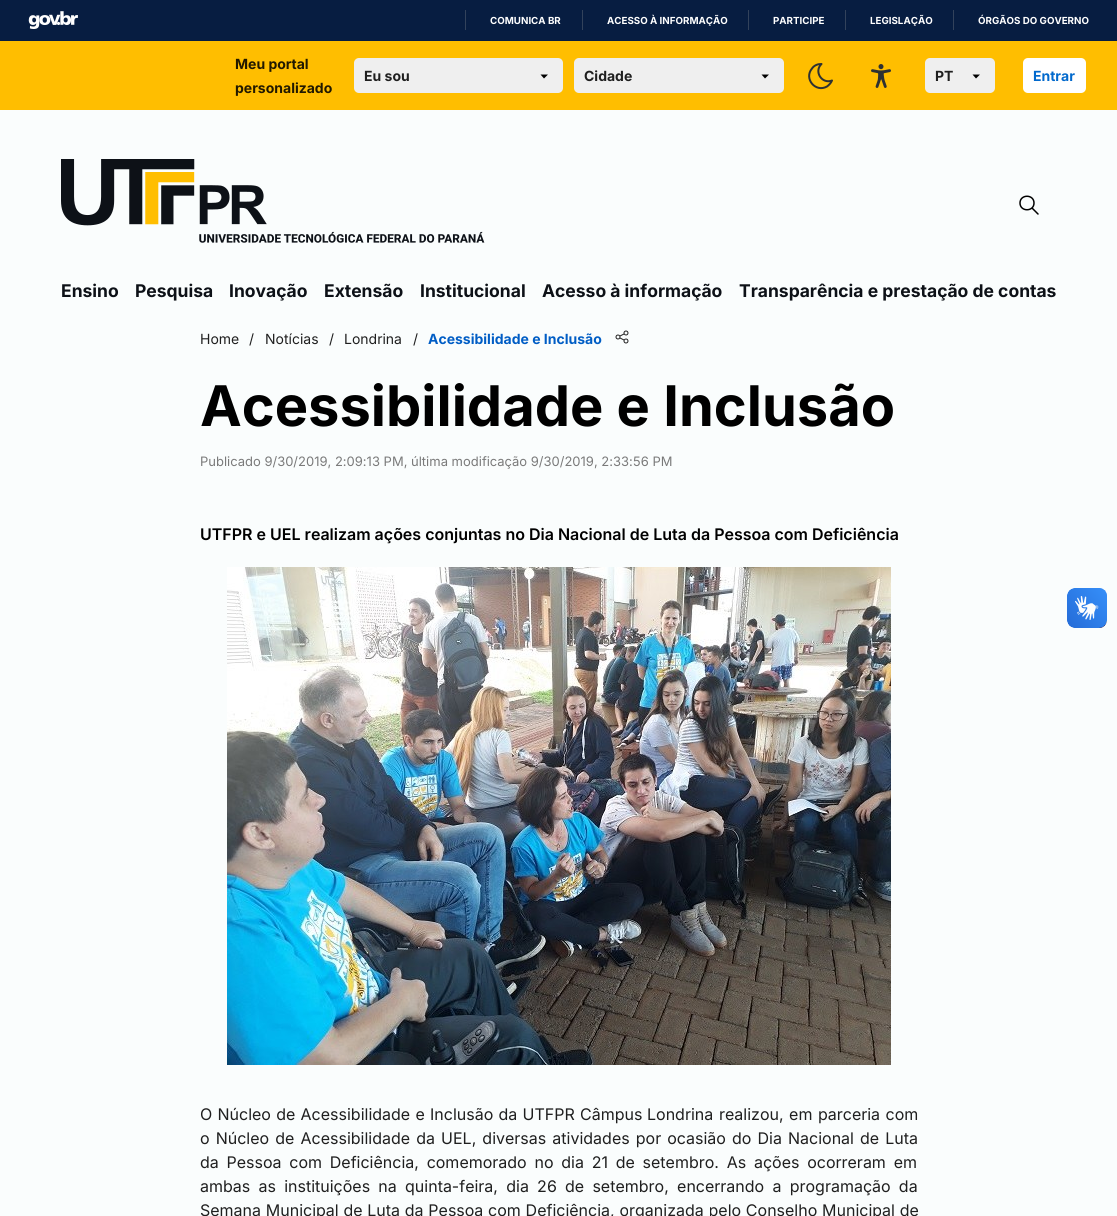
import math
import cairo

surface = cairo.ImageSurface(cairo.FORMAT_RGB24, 1117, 1216)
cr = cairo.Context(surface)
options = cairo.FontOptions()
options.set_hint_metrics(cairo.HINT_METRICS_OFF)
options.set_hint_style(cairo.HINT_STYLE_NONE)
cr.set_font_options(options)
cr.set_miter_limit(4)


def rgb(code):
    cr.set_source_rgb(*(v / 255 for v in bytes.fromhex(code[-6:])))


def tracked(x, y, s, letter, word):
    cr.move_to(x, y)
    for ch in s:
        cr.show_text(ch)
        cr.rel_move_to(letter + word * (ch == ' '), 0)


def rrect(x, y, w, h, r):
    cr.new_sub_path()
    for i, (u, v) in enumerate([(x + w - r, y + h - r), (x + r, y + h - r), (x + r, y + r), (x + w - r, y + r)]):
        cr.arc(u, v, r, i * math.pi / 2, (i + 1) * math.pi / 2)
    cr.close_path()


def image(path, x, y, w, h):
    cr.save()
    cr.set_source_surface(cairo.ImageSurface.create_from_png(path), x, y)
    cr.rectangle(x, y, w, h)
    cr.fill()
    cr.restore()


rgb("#fafdfd")
cr.paint()
rgb("#071d41")
cr.rectangle(0, 0, 1117, 41)
cr.fill()
image("img/1.png", 28, 11, 50, 18)
for x, y, w, h, color in [
    (465, 10, 1, 20, "#32425b"),
    (582, 10, 1, 20, "#32425b"),
    (748, 10, 1, 20, "#32425b"),
    (845, 10, 1, 20, "#32425b"),
    (953, 10, 1, 20, "#32425b"),
    (0, 41, 1117, 69, "#ffbe00"),
]:
    rgb(color)
    cr.rectangle(x, y, w, h)
    cr.fill()
rgb("#efefef")
rrect(354, 58, 209, 35, 5)
cr.fill()
rgb("#000000")
cr.new_path()
cr.move_to(540.5, 74.5)
cr.line_to(544, 78.5)
cr.line_to(548, 74.5)
cr.fill()
rgb("#efefef")
rrect(574, 58, 210, 35, 5)
cr.fill()
rgb("#000000")
cr.new_path()
cr.move_to(761.5, 74.5)
cr.line_to(765, 78.5)
cr.line_to(769, 74.5)
cr.fill()
cr.new_path()
cr.move_to(821, 64)
cr.line_to(821.5, 64)
cr.curve_to(813.5, 71.5, 822, 84.5, 832, 80.5)
cr.curve_to(831, 83, 829, 85, 827, 86.5)
cr.curve_to(815.5, 93, 803.5, 78.5, 812, 68.5)
cr.curve_to(814, 65.5, 817.5, 64, 821, 64)
cr.close_path()
rgb("#2e3132")
cr.set_line_cap(cairo.LINE_CAP_ROUND)
cr.set_line_join(cairo.LINE_JOIN_ROUND)
cr.stroke()
image("img/2.png", 871, 64, 20, 24)
rgb("#efefef")
rrect(925, 58, 70, 35, 5)
cr.fill()
rgb("#000000")
cr.new_path()
cr.move_to(972.5, 74.5)
cr.line_to(976, 78.5)
cr.line_to(980, 74.5)
cr.fill()
rgb("#ffffff")
rrect(1023, 58, 63, 35, 5)
cr.fill()
image("img/3.png", 61, 159, 424, 84)
cr.new_path()
cr.move_to(1038, 214)
cr.line_to(1032, 208)
cr.move_to(1020, 203)
cr.curve_to(1020, 212, 1034, 212, 1034, 203)
cr.curve_to(1034, 194, 1020, 194, 1020, 203)
cr.close_path()
rgb("#000000")
cr.set_line_width(1.5)
cr.stroke()
image("img/4.png", 615, 330, 14, 14)
image("img/5.png", 227, 567, 664, 498)
image("img/6.png", 1067, 588, 40, 40)
image("img/7.png", 1067, 588, 40, 40)
cr.select_font_face("Inter", cairo.FONT_SLANT_NORMAL, cairo.FONT_WEIGHT_BOLD)
cr.set_font_size(9.75)
rgb("#ffffff")
for x, y, s in [
    (490, 24, "COMUNICA BR"),
    (607, 24, "ACESSO À INFORMAÇÃO"),
    (773, 24, "PARTICIPE"),
    (870, 24, "LEGISLAÇÃO"),
    (978, 24, "ÓRGÃOS DO GOVERNO"),
]:
    cr.move_to(x, y)
    cr.show_text(s)
cr.set_font_size(14)
rgb("#211900")
cr.move_to(235, 69)
cr.show_text("Meu portal")
cr.move_to(235, 93)
cr.show_text("personalizado")
rgb("#1f1f1f")
for x, y, s in [
    (364, 81, "Eu sou"),
    (584, 81, "Cidade"),
    (935, 81, "PT"),
]:
    cr.move_to(x, y)
    cr.show_text(s)
rgb("#0169cd")
cr.move_to(1033, 81)
cr.show_text("Entrar")
cr.set_font_size(17.5)
rgb("#0d1117")
for x, y, s in [
    (61, 297, "Ensino"),
    (135, 297, "Pesquisa"),
    (229, 297, "Inovação"),
    (324, 297, "Extensão"),
    (420, 297, "Institucional"),
    (542, 297, "Acesso à informação"),
    (739, 297, "Transparência e prestação de contas"),
]:
    cr.move_to(x, y)
    cr.show_text(s)
cr.select_font_face("Inter")
cr.set_font_size(14)
rgb("#1f1f1f")
for x, y, s in [
    (200, 344, "Home"),
    (249, 344, "/"),
    (265, 344, "Notícias"),
    (329, 344, "/"),
    (344, 344, "Londrina"),
    (413, 344, "/"),
]:
    cr.move_to(x, y)
    cr.show_text(s)
cr.select_font_face("Inter", cairo.FONT_SLANT_NORMAL, cairo.FONT_WEIGHT_BOLD)
rgb("#005dc5")
cr.move_to(428, 344)
cr.show_text("Acessibilidade e Inclusão")
cr.set_font_size(56)
rgb("#000000")
cr.move_to(200, 426)
cr.show_text("Acessibilidade e Inclusão")
cr.select_font_face("Inter")
cr.set_font_size(13)
rgb("#7a7a7a")
cr.move_to(200, 466)
cr.show_text("Publicado 9/30/2019, 2:09:13 PM, última modificação 9/30/2019, 2:33:56 PM")
cr.select_font_face("Inter SemiBold")
cr.set_font_size(16)
rgb("#000000")
cr.move_to(200, 540)
cr.show_text("UTFPR e UEL realizam ações conjuntas no Dia Nacional de Luta da Pessoa com Deficiência")
cr.select_font_face("Inter")
rgb("#1f1f1f")
tracked(200, 1120, "O Núcleo de Acessibilidade e Inclusão da UTFPR Câmpus", 0, 0.75)
cr.move_to(647, 1120)
cr.show_text("Londrina")
tracked(719, 1120, "realizou, em parceria com", 0, 1)
tracked(200, 1144, "o Núcleo de Acessibilidade da UEL, diversas atividades por ocasião do Dia Nacional de Luta", 0, 1.6)
tracked(200, 1168, "da Pessoa com Deficiência, comemorado no dia 21 de setembro. As ações ocorreram em", 0, 3.25)
tracked(200, 1192, "ambas as instituições na quinta-feira, dia 26 de setembro, encerrando a programação da", 0, 3.75)
tracked(200, 1216, "Semana Municipal de Luta da Pessoa com Deficiência, organizada pelo Conselho Municipal de", 0, 0.25)
surface.write_to_png("page.png")
